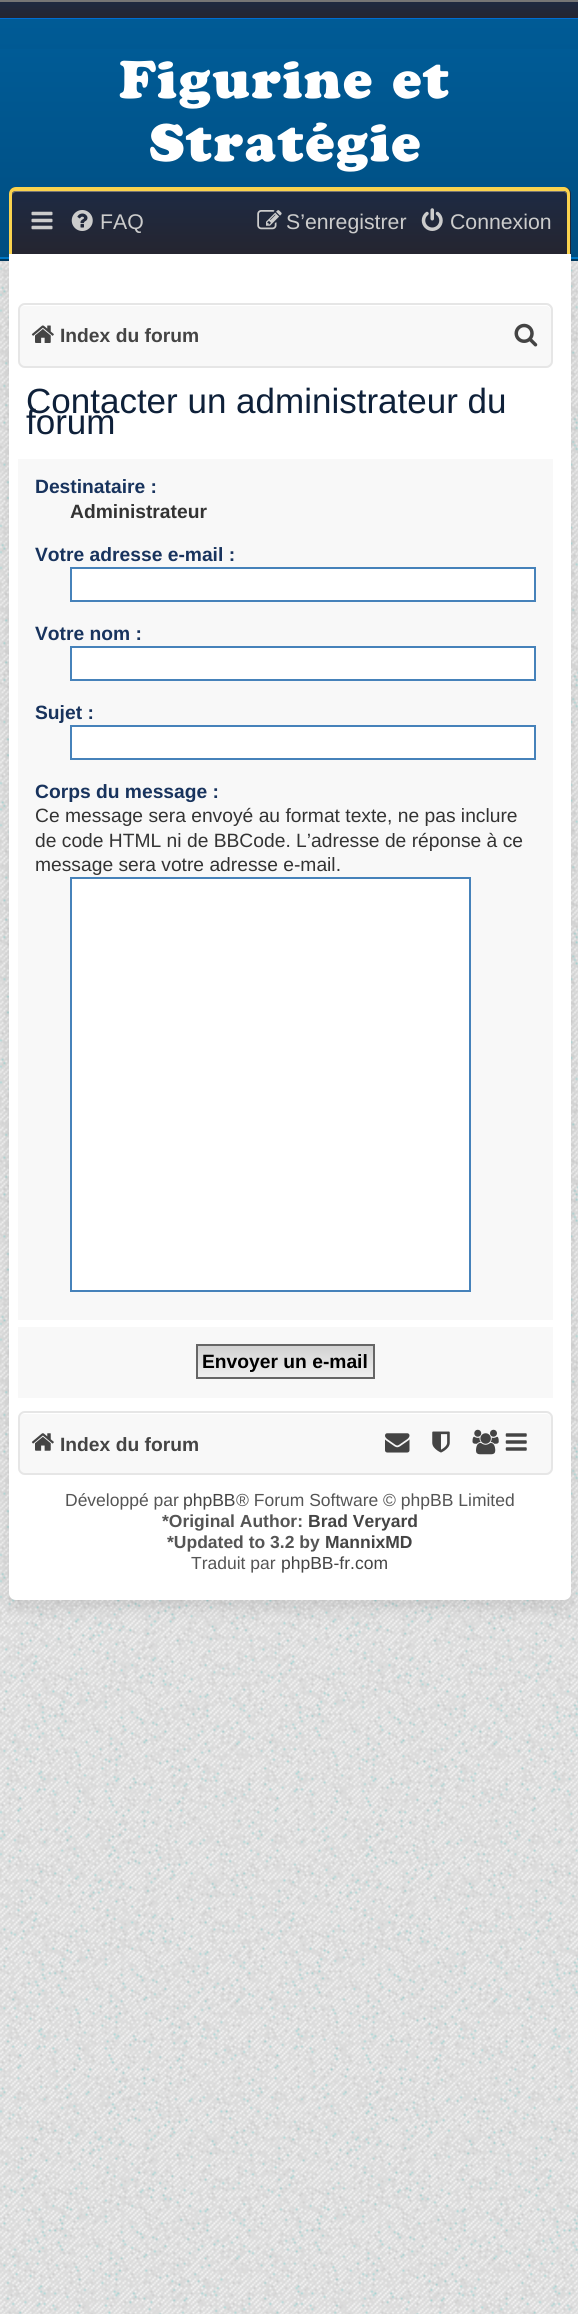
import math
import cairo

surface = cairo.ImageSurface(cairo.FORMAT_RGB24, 578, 2314)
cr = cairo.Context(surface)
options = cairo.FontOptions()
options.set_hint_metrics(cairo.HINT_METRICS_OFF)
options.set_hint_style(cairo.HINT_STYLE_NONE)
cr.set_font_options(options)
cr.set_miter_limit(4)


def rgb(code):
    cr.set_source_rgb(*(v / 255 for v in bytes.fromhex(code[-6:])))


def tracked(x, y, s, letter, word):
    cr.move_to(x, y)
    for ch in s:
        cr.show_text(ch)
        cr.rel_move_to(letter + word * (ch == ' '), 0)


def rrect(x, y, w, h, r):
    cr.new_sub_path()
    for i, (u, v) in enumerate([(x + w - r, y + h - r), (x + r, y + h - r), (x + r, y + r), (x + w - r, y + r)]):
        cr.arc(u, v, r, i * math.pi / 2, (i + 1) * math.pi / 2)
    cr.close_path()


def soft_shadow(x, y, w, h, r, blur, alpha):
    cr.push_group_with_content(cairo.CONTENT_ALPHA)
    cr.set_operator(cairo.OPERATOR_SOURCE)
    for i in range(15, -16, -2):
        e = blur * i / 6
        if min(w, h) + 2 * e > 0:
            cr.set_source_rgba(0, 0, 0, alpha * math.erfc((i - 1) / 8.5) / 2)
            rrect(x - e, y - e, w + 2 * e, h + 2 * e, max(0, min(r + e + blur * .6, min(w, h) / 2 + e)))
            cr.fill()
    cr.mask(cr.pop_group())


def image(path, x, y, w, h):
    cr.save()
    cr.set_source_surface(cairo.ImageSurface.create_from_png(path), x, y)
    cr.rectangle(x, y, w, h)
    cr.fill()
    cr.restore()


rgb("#ffffff")
cr.paint()
image("img/1.png", 0, 1600, 578, 714)
image("img/2.png", 0, 261, 578, 1339)
gradient = cairo.LinearGradient(290, 0, 290, 18)
gradient.add_color_stop_rgba(0, 0.114, 0.165, 0.263, 1)
gradient.add_color_stop_rgba(1, 0.145, 0.145, 0.188, 1)
cr.set_source(gradient)
cr.rectangle(0, 2, 578, 16)
cr.fill()
rgb("#757575")
cr.rectangle(0, 0, 578, 2)
cr.fill()
rgb("#006dd3")
cr.rectangle(0, 18, 578, 1)
cr.fill()
gradient = cairo.LinearGradient(290, 19, 290, 250)
gradient.add_color_stop_rgba(0, 0, 0.357, 0.588, 1)
gradient.add_color_stop_rgba(1, 0, 0.302, 0.502, 1)
cr.set_source(gradient)
cr.rectangle(0, 19, 578, 30)
cr.fill()
gradient = cairo.LinearGradient(285, 49, 285, 259)
gradient.add_color_stop_rgba(0, 0, 0.357, 0.588, 1)
gradient.add_color_stop_rgba(1, 0, 0.302, 0.502, 1)
cr.set_source(gradient)
cr.rectangle(0, 49, 578, 208)
cr.fill()
rgb("#0078c7")
cr.rectangle(0, 257, 578, 2)
cr.fill()
rgb("#00395f")
cr.rectangle(0, 259, 578, 2)
cr.fill()
cr.save()
cr.new_path()
cr.move_to(16, 187)
cr.line_to(564, 187)
cr.curve_to(568, 187, 571, 190, 571, 194)
cr.line_to(571, 254)
cr.line_to(9, 254)
cr.line_to(9, 194)
cr.curve_to(9, 190, 12, 187, 16, 187)
cr.close_path()
cr.clip()
gradient = cairo.LinearGradient(290, 128, 290, 191)
gradient.add_color_stop_rgba(0, 0.114, 0.165, 0.263, 1)
gradient.add_color_stop_rgba(1, 0.145, 0.145, 0.188, 1)
cr.set_source(gradient)
cr.rectangle(9, 187, 562, 4)
cr.fill()
gradient = cairo.LinearGradient(290, 191, 290, 254)
gradient.add_color_stop_rgba(0, 0.114, 0.165, 0.263, 1)
gradient.add_color_stop_rgba(1, 0.145, 0.145, 0.188, 1)
cr.set_source(gradient)
cr.rectangle(9, 191, 562, 63)
cr.fill()
cr.restore()
rgb("#757575")
cr.new_path()
cr.move_to(16, 192)
cr.line_to(564, 192)
cr.curve_to(565, 192, 567, 194, 567, 196)
cr.line_to(567, 195)
cr.curve_to(567, 193, 565, 191, 563, 191)
cr.line_to(16, 191)
cr.curve_to(14, 191, 12, 193, 12, 195)
cr.line_to(12, 196)
cr.curve_to(12, 194, 14, 192, 16, 192)
cr.close_path()
cr.fill()
rgb("#fad34e")
cr.set_fill_rule(cairo.FILL_RULE_EVEN_ODD)
cr.new_path()
cr.move_to(16, 187)
cr.line_to(564, 187)
cr.curve_to(567, 187, 570, 190, 570, 194)
cr.line_to(570, 254)
cr.line_to(9, 254)
cr.line_to(9, 194)
cr.curve_to(9, 190, 12, 187, 16, 187)
cr.close_path()
cr.move_to(16, 191)
cr.line_to(564, 191)
cr.curve_to(565, 191, 567, 192, 567, 194)
cr.line_to(567, 254)
cr.line_to(12, 254)
cr.line_to(12, 194)
cr.curve_to(12, 192, 14, 191, 16, 191)
cr.close_path()
cr.fill()
image("img/3.png", 31, 211, 22, 19)
image("img/4.png", 71, 210, 22, 21)
image("img/5.png", 257, 210, 25, 20)
image("img/6.png", 421, 208, 22, 23)
rgb("#000000")
soft_shadow(9, 263, 562, 1345, 7, 8, 0.1)
rgb("#ffffff")
cr.new_path()
cr.move_to(9, 254)
cr.line_to(571, 254)
cr.line_to(571, 1593)
cr.curve_to(571, 1597, 568, 1600, 564, 1600)
cr.line_to(16, 1600)
cr.curve_to(12, 1600, 9, 1597, 9, 1593)
cr.close_path()
cr.fill()
rgb("#f8f8f8")
rrect(18, 303, 535, 65, 7)
cr.fill()
rgb("#ffffff")
cr.set_fill_rule(cairo.FILL_RULE_WINDING)
cr.new_path()
cr.move_to(24, 306)
cr.line_to(546, 306)
cr.curve_to(549, 306, 551, 309, 551, 312)
cr.curve_to(551, 309, 550, 305, 546, 305)
cr.line_to(24, 305)
cr.curve_to(20, 305, 19, 309, 19, 312)
cr.curve_to(19, 309, 22, 306, 24, 306)
cr.close_path()
cr.fill()
rrect(19, 304, 533, 63, 6)
rgb("#e6e6e6")
cr.stroke()
image("img/7.png", 31, 325, 23, 18)
image("img/8.png", 514, 323, 24, 24)
rgb("#f8f8f8")
cr.rectangle(18, 459, 535, 861)
cr.fill()
rgb("#ffffff")
cr.rectangle(71, 568, 464, 33)
cr.fill_preserve()
rgb("#4682ba")
cr.stroke()
rgb("#ffffff")
cr.rectangle(71, 647, 464, 33)
cr.fill_preserve()
rgb("#4682ba")
cr.stroke()
rgb("#ffffff")
cr.rectangle(71, 726, 464, 33)
cr.fill_preserve()
rgb("#4682ba")
cr.stroke()
rgb("#ffffff")
cr.rectangle(71, 878, 399, 413)
cr.fill_preserve()
rgb("#4682ba")
cr.stroke()
rgb("#f8f8f8")
cr.rectangle(18, 1327, 535, 71)
cr.fill()
gradient = cairo.LinearGradient(285, 1346, 285, 1377)
gradient.add_color_stop_rgba(0, 0.824, 0.824, 0.824, 1)
gradient.add_color_stop_rgba(1, 0.937, 0.937, 0.937, 1)
cr.set_source(gradient)
cr.rectangle(198, 1346, 175, 31)
cr.fill()
cr.rectangle(197, 1345, 177, 33)
rgb("#666666")
cr.stroke()
rgb("#f8f8f8")
rrect(18, 1411, 535, 64, 7)
cr.fill()
rgb("#ffffff")
cr.new_path()
cr.move_to(24, 1414)
cr.line_to(546, 1414)
cr.curve_to(549, 1414, 551, 1416, 551, 1419)
cr.curve_to(551, 1416, 550, 1412, 546, 1412)
cr.line_to(24, 1412)
cr.curve_to(20, 1412, 19, 1416, 19, 1419)
cr.curve_to(19, 1416, 22, 1414, 24, 1414)
cr.close_path()
cr.fill()
rrect(19, 1412, 533, 62, 6)
rgb("#e6e6e6")
cr.stroke()
image("img/9.png", 31, 1433, 23, 18)
image("img/10.png", 385, 1433, 25, 20)
image("img/11.png", 432, 1431, 18, 22)
image("img/12.png", 472, 1429, 27, 26)
image("img/13.png", 505, 1433, 22, 18)
cr.select_font_face("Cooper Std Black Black")
cr.set_font_size(52.5)
rgb("#ffffff")
tracked(119, 98, "Figurine et", 1.75, 0)
tracked(149, 161, "Stratégie", 1.75, 0)
cr.select_font_face("Liberation Sans")
cr.set_font_size(21.25)
rgb("#cccccc")
for x, y, s in [
    (100, 229, "FAQ"),
    (286, 229, "S’enregistrer"),
    (450, 229, "Connexion"),
]:
    cr.move_to(x, y)
    cr.show_text(s)
cr.select_font_face("Liberation Sans", cairo.FONT_SLANT_NORMAL, cairo.FONT_WEIGHT_BOLD)
cr.set_font_size(19.25)
rgb("#444444")
cr.move_to(60, 342)
cr.show_text("Index du forum")
cr.select_font_face("Liberation Sans")
cr.set_font_size(35)
rgb("#0e2039")
cr.move_to(26, 413)
cr.show_text("Contacter un administrateur du")
cr.move_to(26, 434)
cr.show_text("forum")
cr.select_font_face("Liberation Sans", cairo.FONT_SLANT_NORMAL, cairo.FONT_WEIGHT_BOLD)
cr.set_font_size(19.25)
rgb("#18335d")
cr.move_to(35, 493)
cr.show_text("Destinataire :")
rgb("#333333")
cr.move_to(70, 518)
cr.show_text("Administrateur")
rgb("#18335d")
for x, y, s in [
    (35, 561, "Votre adresse e-mail :"),
    (35, 640, "Votre nom :"),
    (35, 719, "Sujet :"),
    (35, 798, "Corps du message :"),
]:
    cr.move_to(x, y)
    cr.show_text(s)
cr.select_font_face("Liberation Sans")
rgb("#333333")
for x, y, s in [
    (35, 822, "Ce message sera envoyé au format texte, ne pas inclure"),
    (35, 847, "de code HTML ni de BBCode. L’adresse de réponse à ce"),
    (35, 871, "message sera votre adresse e-mail."),
]:
    cr.move_to(x, y)
    cr.show_text(s)
cr.select_font_face("Liberation Sans", cairo.FONT_SLANT_NORMAL, cairo.FONT_WEIGHT_BOLD)
rgb("#000000")
cr.move_to(202, 1368)
cr.show_text("Envoyer un e-mail")
rgb("#444444")
cr.move_to(60, 1451)
cr.show_text("Index du forum")
cr.select_font_face("Liberation Sans")
cr.set_font_size(17.5)
rgb("#555555")
cr.move_to(65, 1506)
cr.show_text("Développé par")
rgb("#444444")
cr.move_to(183, 1506)
cr.show_text("phpBB")
rgb("#555555")
cr.move_to(236, 1506)
cr.show_text("® Forum Software © phpBB Limited")
cr.select_font_face("Liberation Sans", cairo.FONT_SLANT_NORMAL, cairo.FONT_WEIGHT_BOLD)
cr.move_to(162, 1527)
cr.show_text("*Original Author:")
rgb("#444444")
cr.move_to(308, 1527)
cr.show_text("Brad Veryard")
rgb("#555555")
cr.move_to(167, 1548)
cr.show_text("*Updated to 3.2 by")
rgb("#444444")
cr.move_to(325, 1548)
cr.show_text("MannixMD")
cr.select_font_face("Liberation Sans")
rgb("#555555")
cr.move_to(191, 1569)
cr.show_text("Traduit par")
rgb("#444444")
cr.move_to(281, 1569)
cr.show_text("phpBB-fr.com")
surface.write_to_png("page.png")
